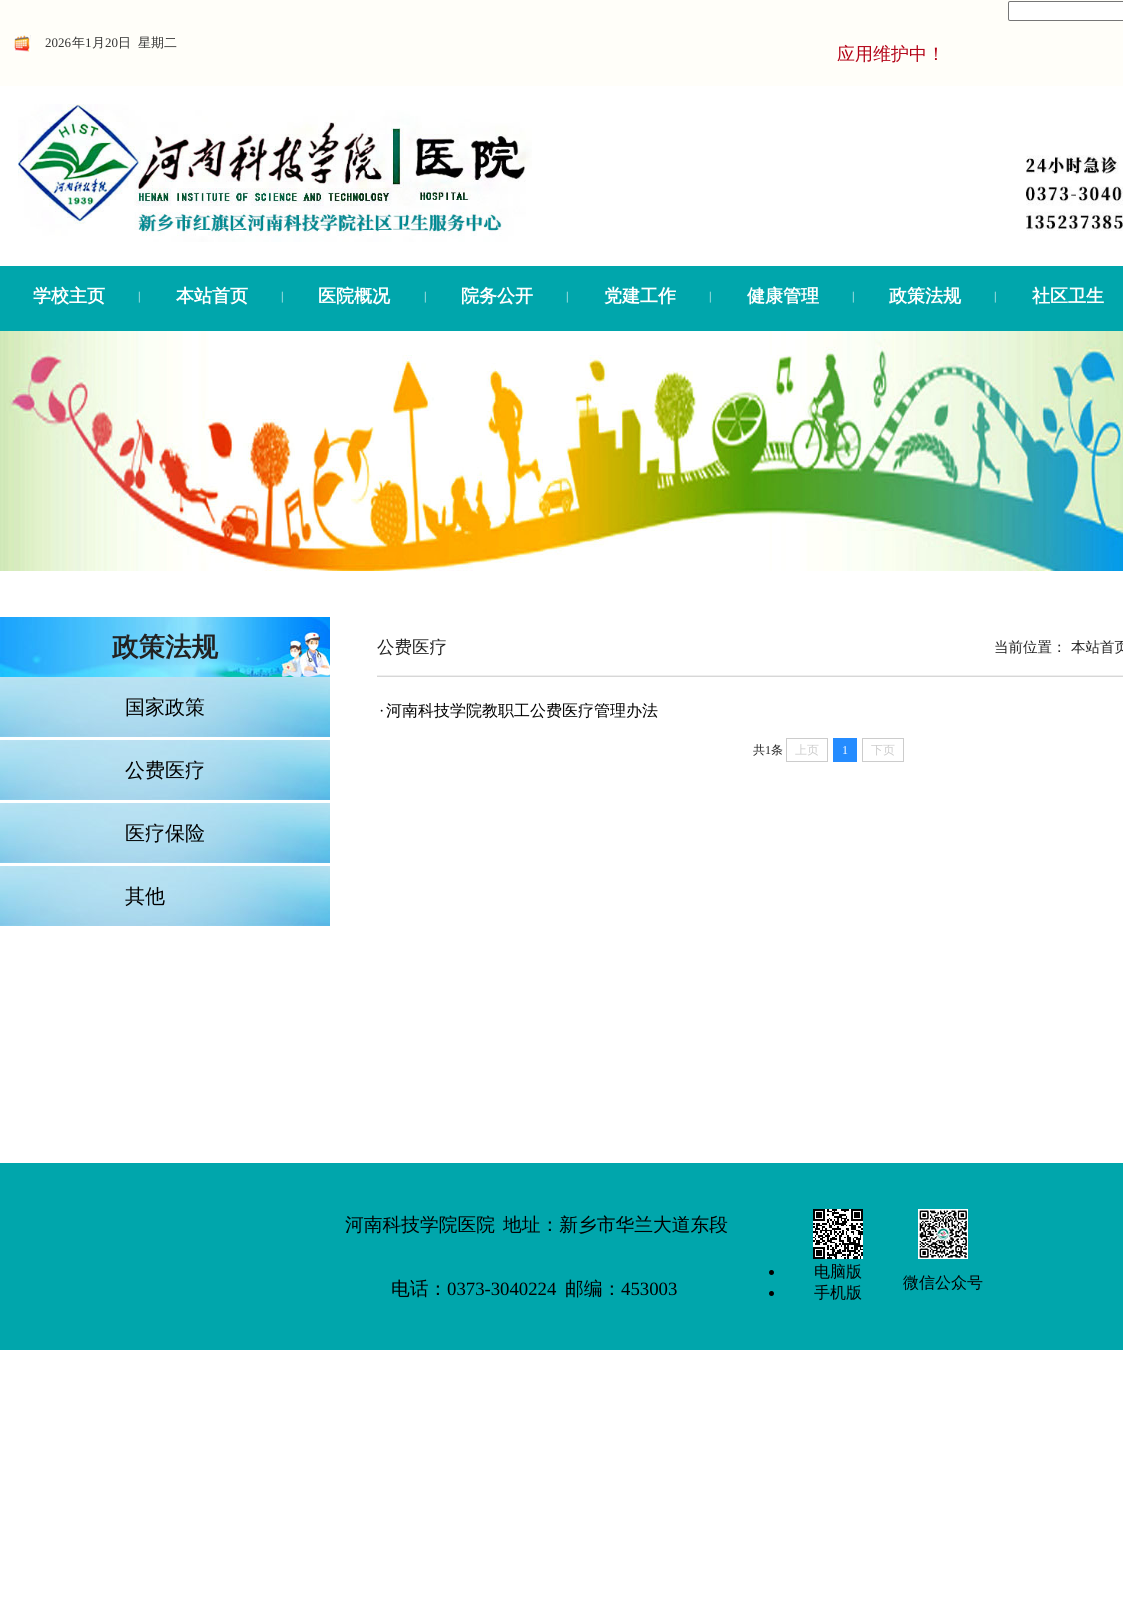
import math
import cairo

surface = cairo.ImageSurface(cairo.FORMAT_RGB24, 1123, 1623)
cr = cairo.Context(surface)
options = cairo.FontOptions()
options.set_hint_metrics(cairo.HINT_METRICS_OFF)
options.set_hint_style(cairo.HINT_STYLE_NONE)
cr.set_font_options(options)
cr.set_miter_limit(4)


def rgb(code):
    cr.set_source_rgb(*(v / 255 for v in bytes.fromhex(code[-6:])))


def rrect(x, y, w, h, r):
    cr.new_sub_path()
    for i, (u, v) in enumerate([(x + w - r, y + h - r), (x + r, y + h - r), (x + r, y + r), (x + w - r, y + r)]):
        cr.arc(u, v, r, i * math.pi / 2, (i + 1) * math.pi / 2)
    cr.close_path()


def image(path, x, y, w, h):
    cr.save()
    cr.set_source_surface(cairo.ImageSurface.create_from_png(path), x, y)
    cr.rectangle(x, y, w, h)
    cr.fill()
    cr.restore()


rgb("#ffffff")
cr.paint()
rgb("#fffef9")
cr.rectangle(0, 0, 1123, 86)
cr.fill()
image("img/1.png", 14, 35, 17, 17)
rgb("#ffffff")
rrect(1008.5, 1.5, 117, 19, 1.5)
cr.fill_preserve()
rgb("#767676")
cr.set_line_width(1)
cr.stroke()
image("img/2.png", 18, 104, 514, 138)
image("img/3.png", 1026, 155, 97, 76)
rgb("#00a6ac")
cr.rectangle(0, 266, 1123, 65)
cr.fill()
image("img/4.png", 0, 331, 1123, 240)
image("img/5.png", 0, 617, 330, 60)
image("img/6.png", 377, 675, 746, 2)
image("img/7.png", 0, 677, 330, 60)
image("img/7.png", 0, 740, 330, 60)
image("img/7.png", 0, 803, 330, 60)
image("img/7.png", 0, 866, 330, 60)
cr.rectangle(786.5, 738.5, 41, 23)
rgb("#cccccc")
cr.stroke()
rgb("#258cff")
cr.rectangle(833, 738, 24, 24)
cr.fill()
cr.rectangle(862.5, 738.5, 41, 23)
rgb("#cccccc")
cr.stroke()
rgb("#00a6ac")
cr.rectangle(0, 1163, 1123, 187)
cr.fill()
image("img/8.png", 813, 1209, 50, 50)
image("img/9.png", 918, 1209, 50, 50)
rgb("#000000")
cr.arc(771.5, 1272.5, 2.5, 0, 2 * math.pi)
cr.fill()
cr.arc(771.5, 1293.5, 2.5, 0, 2 * math.pi)
cr.fill()
cr.select_font_face("Liberation Serif")
cr.set_font_size(13)
rgb("#343434")
cr.move_to(45, 47)
cr.show_text("2026")
cr.select_font_face("WenQuanYi Zen Hei Medium")
cr.move_to(72, 47)
cr.show_text("年")
cr.select_font_face("Liberation Serif")
cr.move_to(85, 47)
cr.show_text("1")
cr.select_font_face("WenQuanYi Zen Hei Medium")
cr.move_to(92, 47)
cr.show_text("月")
cr.select_font_face("Liberation Serif")
cr.move_to(105, 47)
cr.show_text("20")
cr.select_font_face("WenQuanYi Zen Hei Medium")
cr.move_to(118, 47)
cr.show_text("日")
cr.move_to(138, 47)
cr.show_text("星期二")
cr.set_font_size(18)
rgb("#b30216")
cr.move_to(837, 60)
cr.show_text("应用维护中！")
cr.select_font_face("WenQuanYi Zen Hei", cairo.FONT_SLANT_NORMAL, cairo.FONT_WEIGHT_BOLD)
rgb("#ffffff")
cr.move_to(33, 302)
cr.show_text("学校主页")
cr.select_font_face("Liberation Serif")
cr.set_font_size(12)
cr.move_to(138, 300)
cr.show_text("|")
cr.select_font_face("WenQuanYi Zen Hei", cairo.FONT_SLANT_NORMAL, cairo.FONT_WEIGHT_BOLD)
cr.set_font_size(18)
cr.move_to(176, 302)
cr.show_text("本站首页")
cr.select_font_face("Liberation Serif")
cr.set_font_size(12)
cr.move_to(281, 300)
cr.show_text("|")
cr.select_font_face("WenQuanYi Zen Hei", cairo.FONT_SLANT_NORMAL, cairo.FONT_WEIGHT_BOLD)
cr.set_font_size(18)
cr.move_to(318, 302)
cr.show_text("医院概况")
cr.select_font_face("Liberation Serif")
cr.set_font_size(12)
cr.move_to(424, 300)
cr.show_text("|")
cr.select_font_face("WenQuanYi Zen Hei", cairo.FONT_SLANT_NORMAL, cairo.FONT_WEIGHT_BOLD)
cr.set_font_size(18)
cr.move_to(461, 302)
cr.show_text("院务公开")
cr.select_font_face("Liberation Serif")
cr.set_font_size(12)
cr.move_to(566, 300)
cr.show_text("|")
cr.select_font_face("WenQuanYi Zen Hei", cairo.FONT_SLANT_NORMAL, cairo.FONT_WEIGHT_BOLD)
cr.set_font_size(18)
cr.move_to(604, 302)
cr.show_text("党建工作")
cr.select_font_face("Liberation Serif")
cr.set_font_size(12)
cr.move_to(709, 300)
cr.show_text("|")
cr.select_font_face("WenQuanYi Zen Hei", cairo.FONT_SLANT_NORMAL, cairo.FONT_WEIGHT_BOLD)
cr.set_font_size(18)
cr.move_to(747, 302)
cr.show_text("健康管理")
cr.select_font_face("Liberation Serif")
cr.set_font_size(12)
cr.move_to(852, 300)
cr.show_text("|")
cr.select_font_face("WenQuanYi Zen Hei", cairo.FONT_SLANT_NORMAL, cairo.FONT_WEIGHT_BOLD)
cr.set_font_size(18)
cr.move_to(889, 302)
cr.show_text("政策法规")
cr.select_font_face("Liberation Serif")
cr.set_font_size(12)
cr.move_to(994, 300)
cr.show_text("|")
cr.select_font_face("WenQuanYi Zen Hei", cairo.FONT_SLANT_NORMAL, cairo.FONT_WEIGHT_BOLD)
cr.set_font_size(18)
cr.move_to(1032, 302)
cr.show_text("社区卫生")
cr.set_font_size(26.5)
rgb("#222222")
cr.move_to(112, 656)
cr.show_text("政策法规")
cr.select_font_face("WenQuanYi Zen Hei Medium")
cr.set_font_size(17.5)
cr.move_to(377, 653)
cr.show_text("公费医疗")
cr.set_font_size(14.5)
cr.move_to(994, 652)
cr.show_text("当前位置：")
cr.move_to(1071, 652)
cr.show_text("本站首页")
cr.set_font_size(20)
rgb("#000000")
for x, y, s in [
    (125, 714, "国家政策"),
    (125, 777, "公费医疗"),
    (125, 840, "医疗保险"),
    (125, 903, "其他"),
]:
    cr.move_to(x, y)
    cr.show_text(s)
cr.select_font_face("Liberation Serif")
cr.set_font_size(16)
cr.move_to(379, 716)
cr.show_text("·")
cr.select_font_face("WenQuanYi Zen Hei Medium")
cr.move_to(386, 716)
cr.show_text("河南科技学院教职工公费医疗管理办法")
cr.set_font_size(12)
rgb("#222222")
cr.move_to(753, 754)
cr.show_text("共")
cr.select_font_face("Liberation Serif")
cr.move_to(765, 754)
cr.show_text("1")
cr.select_font_face("WenQuanYi Zen Hei Medium")
cr.move_to(771, 754)
cr.show_text("条")
rgb("#cccccc")
cr.move_to(795, 754)
cr.show_text("上页")
cr.select_font_face("Liberation Serif")
rgb("#ffffff")
cr.move_to(842, 754)
cr.show_text("1")
cr.select_font_face("WenQuanYi Zen Hei Medium")
rgb("#cccccc")
cr.move_to(871, 754)
cr.show_text("下页")
cr.set_font_size(18.75)
rgb("#000000")
for x, y, s in [
    (345, 1231, "河南科技学院医院"),
    (503, 1231, "地址：新乡市华兰大道东段"),
    (391, 1295, "电话："),
]:
    cr.move_to(x, y)
    cr.show_text(s)
cr.select_font_face("Liberation Serif")
cr.move_to(447, 1295)
cr.show_text("0373-3040224")
cr.select_font_face("WenQuanYi Zen Hei Medium")
cr.move_to(565, 1295)
cr.show_text("邮编：")
cr.select_font_face("Liberation Serif")
cr.move_to(621, 1295)
cr.show_text("453003")
cr.select_font_face("WenQuanYi Zen Hei Medium")
cr.set_font_size(16)
for x, y, s in [
    (814, 1277, "电脑版"),
    (814, 1298, "手机版"),
    (903, 1288, "微信公众号"),
]:
    cr.move_to(x, y)
    cr.show_text(s)
surface.write_to_png("page.png")
